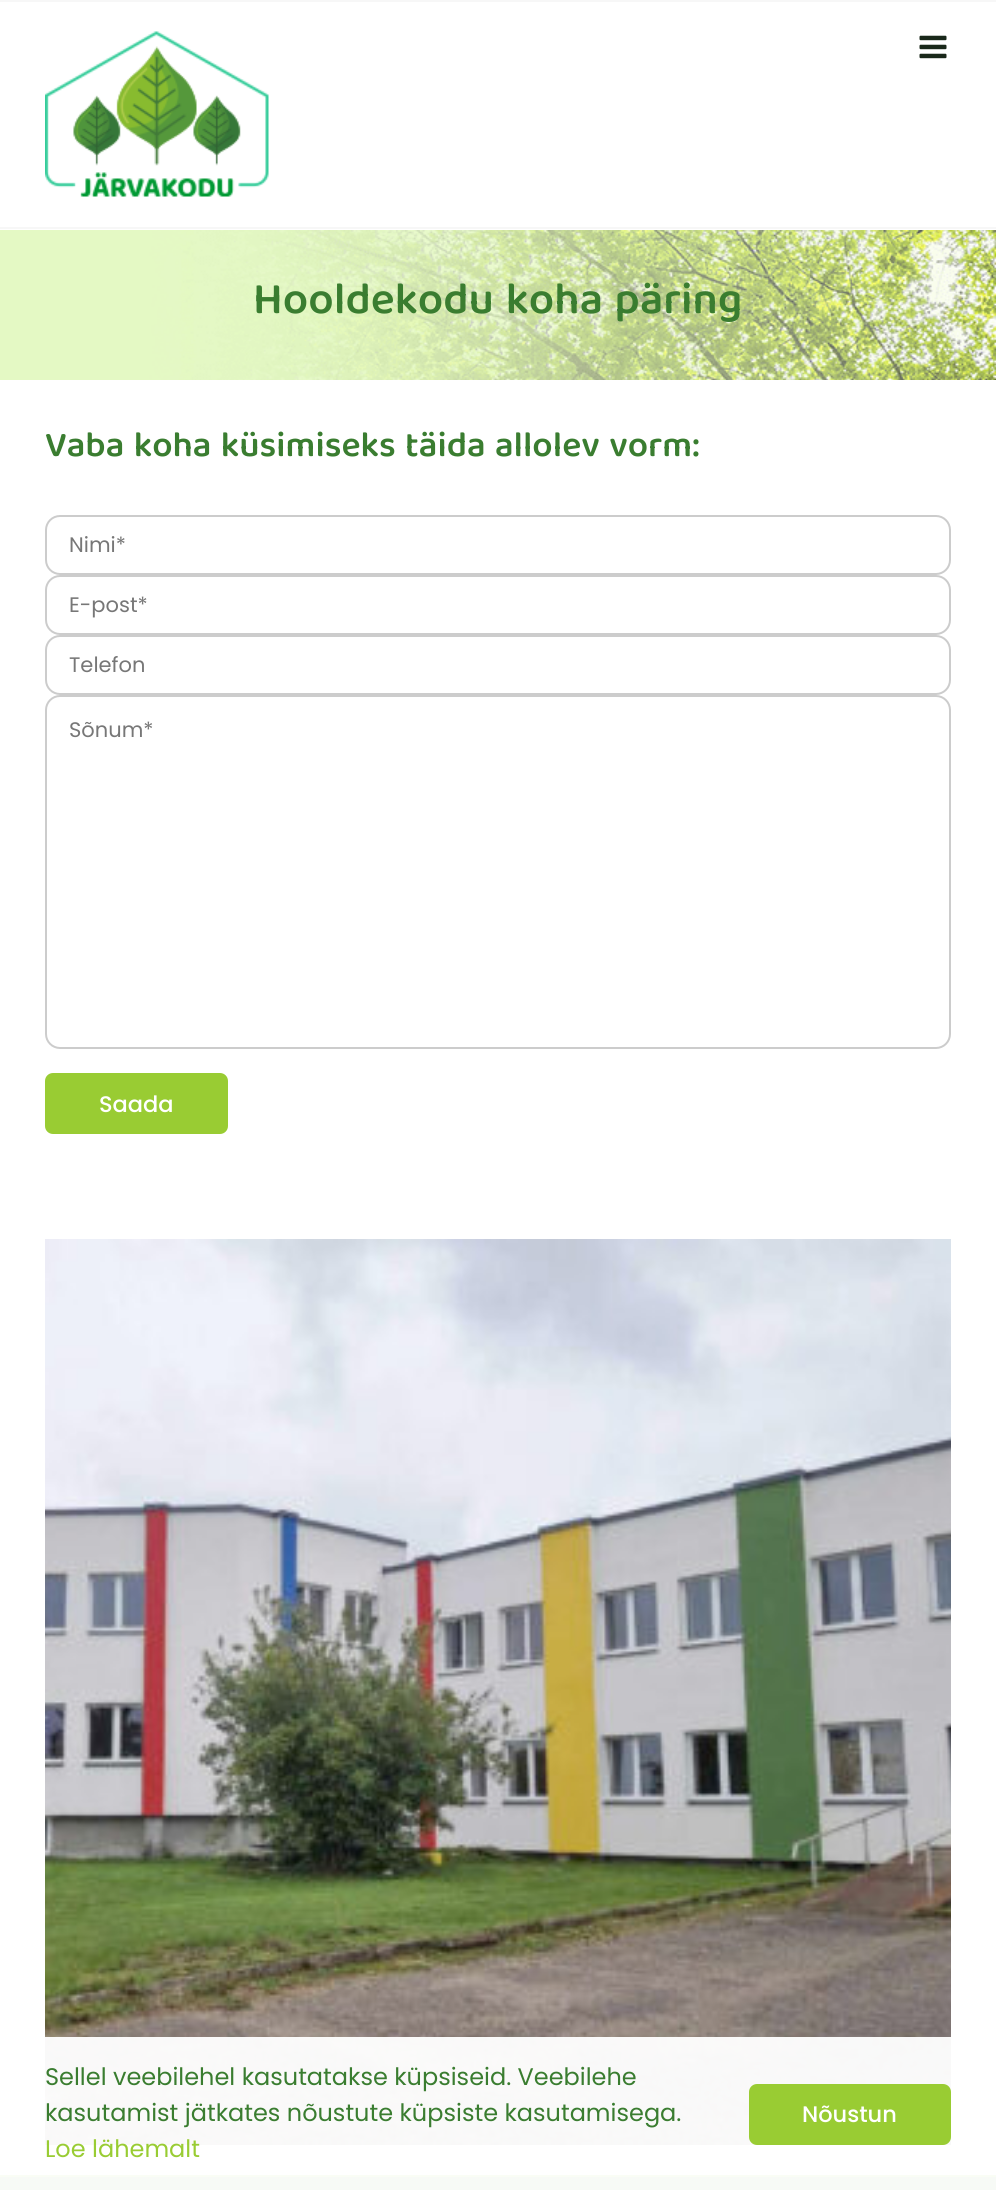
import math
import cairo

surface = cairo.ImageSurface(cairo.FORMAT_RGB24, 996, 2190)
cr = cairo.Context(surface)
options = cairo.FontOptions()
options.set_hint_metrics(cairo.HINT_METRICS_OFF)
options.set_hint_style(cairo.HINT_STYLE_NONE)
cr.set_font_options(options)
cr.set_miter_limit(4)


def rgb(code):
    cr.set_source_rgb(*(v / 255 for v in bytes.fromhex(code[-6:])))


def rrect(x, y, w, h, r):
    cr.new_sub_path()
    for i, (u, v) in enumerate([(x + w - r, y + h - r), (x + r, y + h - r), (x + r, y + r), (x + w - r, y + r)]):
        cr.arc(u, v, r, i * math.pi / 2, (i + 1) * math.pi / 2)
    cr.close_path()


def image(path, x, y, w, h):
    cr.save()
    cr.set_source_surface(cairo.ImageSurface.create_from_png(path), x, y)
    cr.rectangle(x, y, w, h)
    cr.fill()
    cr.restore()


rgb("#ffffff")
cr.paint()
rgb("#f7f7f7")
cr.rectangle(0, 0, 996, 2)
cr.fill()
cr.rectangle(0, 227, 996, 2)
cr.fill()
image("img/1.png", 45, 31, 224, 166)
image("img/2.png", 919, 35, 28, 24)
image("img/3.png", 0, 230, 996, 150)
rrect(46, 516, 904, 58, 14)
rgb("#cccccc")
cr.stroke()
rrect(46, 576, 904, 58, 14)
cr.stroke()
rrect(46, 636, 904, 58, 14)
cr.stroke()
rrect(46, 696, 904, 352, 14)
cr.stroke()
rgb("#99cc33")
rrect(45, 1073, 183, 61, 8)
cr.fill()
image("img/4.png", 45, 1239, 906, 906)
rgb("#569e39")
cr.rectangle(0, 2177, 996, 13)
cr.fill()
rgb("#99cc33")
cr.rectangle(0, 2175, 996, 2)
cr.fill()
cr.set_source_rgba(1, 1, 1, 0.95)
cr.rectangle(0, 2037, 996, 153)
cr.fill()
rgb("#99cc33")
rrect(749, 2084, 202, 61, 8)
cr.fill()
cr.select_font_face("Baloo Tamma 2 SemiBold")
cr.set_font_size(45)
rgb("#3a7d30")
cr.move_to(253, 313)
cr.show_text("Hooldekodu koha päring")
cr.set_font_size(36)
cr.move_to(45, 456)
cr.show_text("Vaba koha küsimiseks täida allolev vorm:")
cr.select_font_face("Poppins")
cr.set_font_size(21)
rgb("#777777")
for x, y, s in [
    (69, 552, "Nimi*"),
    (69, 612, "E-post*"),
    (69, 672, "Telefon"),
    (69, 737, "Sõnum*"),
]:
    cr.move_to(x, y)
    cr.show_text(s)
cr.select_font_face("Poppins Medium")
cr.set_font_size(22.5)
rgb("#ffffff")
cr.move_to(99, 1112)
cr.show_text("Saada")
cr.select_font_face("Poppins")
cr.set_font_size(24)
rgb("#3a7d30")
cr.move_to(45, 2085)
cr.show_text("Sellel veebilehel kasutatakse küpsiseid. Veebilehe")
cr.move_to(45, 2121)
cr.show_text("kasutamist jätkates nõustute küpsiste kasutamisega.")
rgb("#99cc33")
cr.move_to(45, 2157)
cr.show_text("Loe lähemalt")
cr.select_font_face("Poppins Medium")
cr.set_font_size(22.5)
rgb("#ffffff")
cr.move_to(802, 2122)
cr.show_text("Nõustun")
surface.write_to_png("page.png")
